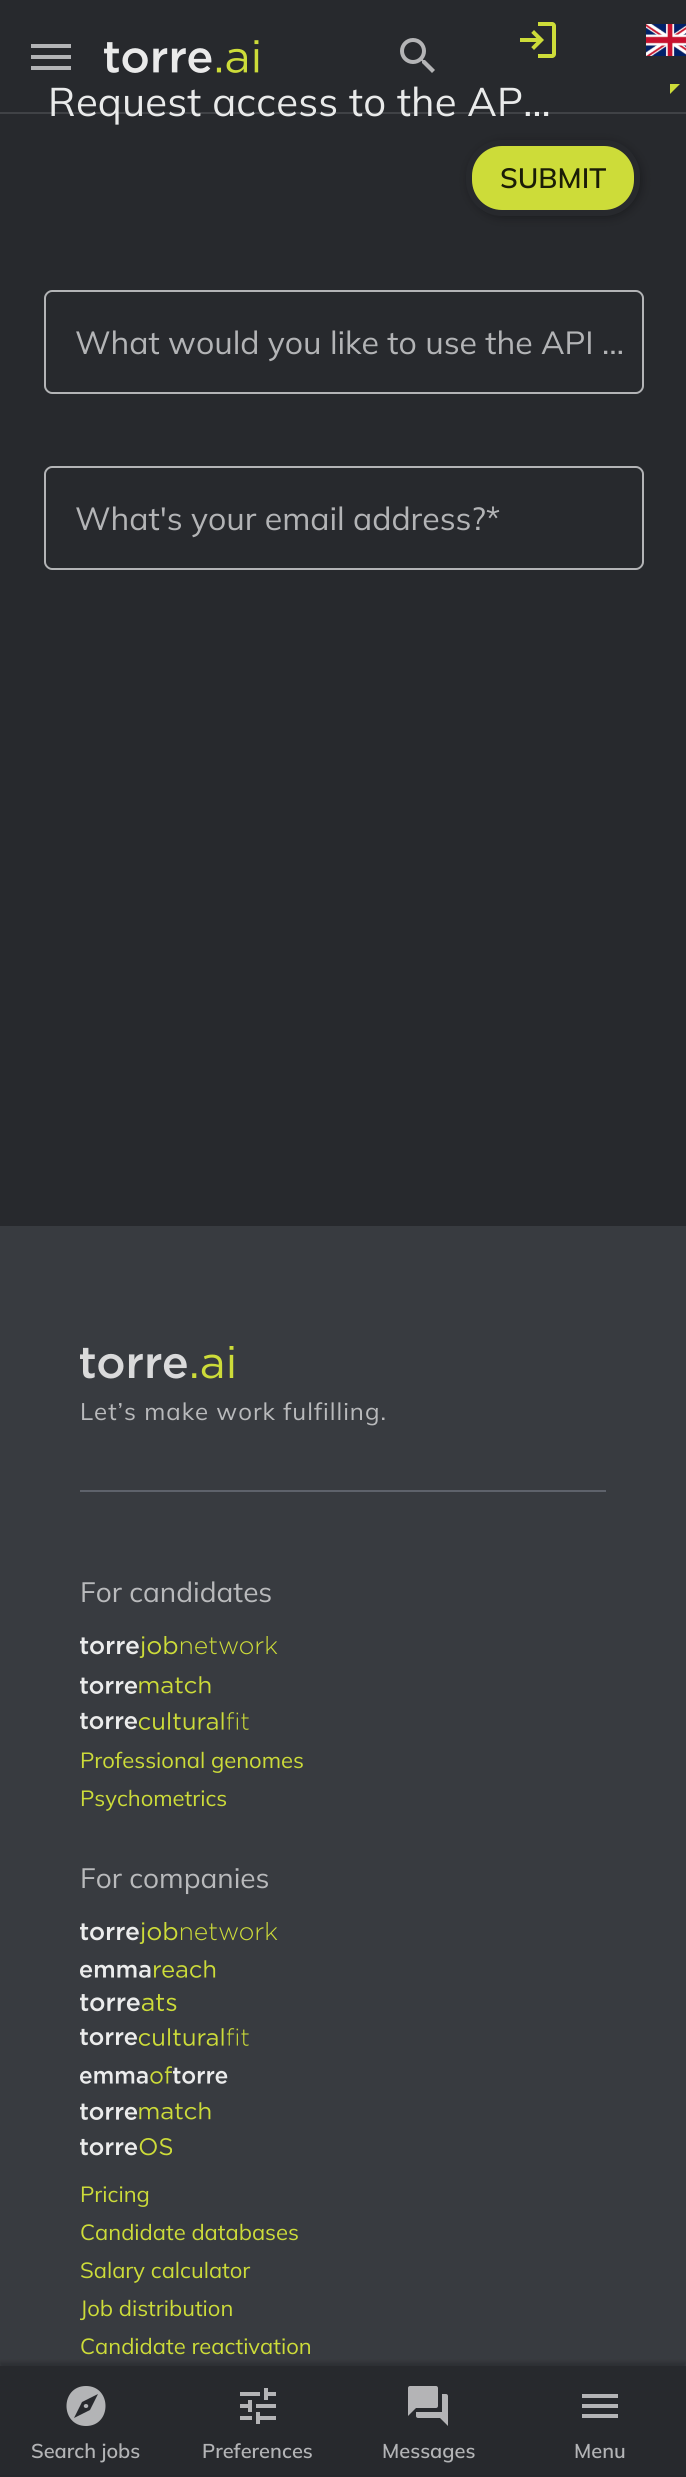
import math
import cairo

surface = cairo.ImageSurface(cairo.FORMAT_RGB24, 686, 2477)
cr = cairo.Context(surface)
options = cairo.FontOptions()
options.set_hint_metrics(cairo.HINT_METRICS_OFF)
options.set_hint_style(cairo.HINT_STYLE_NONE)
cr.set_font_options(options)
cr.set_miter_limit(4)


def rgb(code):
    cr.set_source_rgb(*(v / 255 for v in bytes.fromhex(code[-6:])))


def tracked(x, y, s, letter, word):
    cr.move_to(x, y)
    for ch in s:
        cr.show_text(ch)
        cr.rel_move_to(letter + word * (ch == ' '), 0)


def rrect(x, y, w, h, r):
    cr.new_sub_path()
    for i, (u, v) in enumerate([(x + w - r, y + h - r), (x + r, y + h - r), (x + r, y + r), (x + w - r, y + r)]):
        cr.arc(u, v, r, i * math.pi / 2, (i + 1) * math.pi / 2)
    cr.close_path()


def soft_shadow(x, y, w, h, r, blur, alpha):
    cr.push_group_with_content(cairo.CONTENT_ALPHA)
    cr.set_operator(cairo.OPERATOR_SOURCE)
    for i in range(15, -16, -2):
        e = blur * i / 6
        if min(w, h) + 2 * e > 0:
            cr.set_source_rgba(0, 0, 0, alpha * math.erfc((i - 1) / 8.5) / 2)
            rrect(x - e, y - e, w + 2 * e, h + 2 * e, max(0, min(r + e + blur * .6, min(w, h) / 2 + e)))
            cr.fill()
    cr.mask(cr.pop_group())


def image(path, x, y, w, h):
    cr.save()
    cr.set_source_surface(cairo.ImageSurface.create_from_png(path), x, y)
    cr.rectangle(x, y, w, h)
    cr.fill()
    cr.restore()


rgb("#27292d")
cr.paint()
rgb("#b3b4b6")
cr.new_path()
cr.move_to(31, 44)
cr.line_to(71, 44)
cr.line_to(71, 48)
cr.line_to(31, 48)
cr.line_to(31, 44)
cr.move_to(31, 55)
cr.line_to(71, 55)
cr.line_to(71, 59)
cr.line_to(31, 59)
cr.line_to(31, 55)
cr.move_to(31, 66)
cr.line_to(71, 66)
cr.line_to(71, 70)
cr.line_to(31, 70)
cr.close_path()
cr.fill()
image("img/1.png", 104, 40, 155, 33)
image("img/2.png", 400, 38, 35, 35)
image("img/3.png", 520, 22, 36, 36)
image("img/4.png", 646, 24, 40, 32)
rgb("#cddc39")
cr.new_path()
cr.move_to(660, 84)
cr.line_to(670, 94)
cr.line_to(680, 84)
cr.close_path()
cr.fill()
rgb("#27292d")
cr.rectangle(660, 84, 10, 10)
cr.fill()
rgb("#010101")
soft_shadow(470, 144, 170, 72, 36, 6, 0.4)
rgb("#cddc39")
rrect(468, 142, 170, 72, 36)
cr.fill()
rrect(469, 143, 168, 70, 33)
rgb("#27292d")
cr.set_line_width(6)
cr.stroke()
cr.set_source_rgba(1, 1, 1, 0.12)
cr.rectangle(0, 112, 686, 2)
cr.fill()
rgb("#383b40")
cr.rectangle(0, 1226, 686, 1140)
cr.fill()
rgb("#000000")
soft_shadow(0, 2362, 686, 112, 0, 2, 0.2)
rgb("#27292d")
cr.rectangle(0, 2366, 686, 109)
cr.fill()
rgb("#b3b4b6")
cr.new_path()
cr.move_to(90, 2410)
cr.line_to(74, 2418)
cr.line_to(82, 2402)
cr.line_to(98, 2394)
cr.move_to(86, 2386)
cr.curve_to(60, 2386, 60, 2426, 86, 2426)
cr.curve_to(112, 2426, 112, 2386, 86, 2386)
cr.move_to(86, 2404)
cr.curve_to(83, 2404, 83, 2408, 86, 2408)
cr.curve_to(89, 2408, 89, 2404, 86, 2404)
cr.close_path()
cr.fill()
image("img/5.png", 240, 2388, 36, 36)
image("img/6.png", 408, 2386, 40, 40)
image("img/7.png", 582, 2394, 36, 24)
cr.set_fill_rule(cairo.FILL_RULE_EVEN_ODD)
cr.new_path()
cr.move_to(52, 290)
cr.line_to(68, 290)
cr.line_to(68, 394)
cr.line_to(52, 394)
cr.curve_to(48, 394, 44, 390, 44, 386)
cr.line_to(44, 298)
cr.curve_to(44, 294, 48, 290, 52, 290)
cr.close_path()
cr.move_to(52, 292)
cr.line_to(68, 292)
cr.line_to(68, 392)
cr.line_to(52, 392)
cr.curve_to(49, 392, 46, 389, 46, 386)
cr.line_to(46, 298)
cr.curve_to(46, 295, 49, 292, 52, 292)
cr.close_path()
cr.fill()
cr.rectangle(68, 290, 552, 2)
cr.fill()
cr.rectangle(68, 392, 552, 2)
cr.fill()
cr.new_path()
cr.move_to(620, 290)
cr.line_to(636, 290)
cr.curve_to(640, 290, 644, 294, 644, 298)
cr.line_to(644, 386)
cr.curve_to(644, 390, 640, 394, 636, 394)
cr.line_to(620, 394)
cr.close_path()
cr.move_to(620, 292)
cr.line_to(636, 292)
cr.curve_to(639, 292, 642, 295, 642, 298)
cr.line_to(642, 386)
cr.curve_to(642, 389, 639, 392, 636, 392)
cr.line_to(620, 392)
cr.close_path()
cr.fill()
cr.new_path()
cr.move_to(52, 466)
cr.line_to(68, 466)
cr.line_to(68, 570)
cr.line_to(52, 570)
cr.curve_to(48, 570, 44, 566, 44, 562)
cr.line_to(44, 474)
cr.curve_to(44, 470, 48, 466, 52, 466)
cr.close_path()
cr.move_to(52, 468)
cr.line_to(68, 468)
cr.line_to(68, 568)
cr.line_to(52, 568)
cr.curve_to(49, 568, 46, 565, 46, 562)
cr.line_to(46, 474)
cr.curve_to(46, 471, 49, 468, 52, 468)
cr.close_path()
cr.fill()
cr.rectangle(68, 466, 498, 2)
cr.fill()
cr.rectangle(68, 568, 498, 2)
cr.fill()
cr.new_path()
cr.move_to(566, 466)
cr.line_to(636, 466)
cr.curve_to(640, 466, 644, 470, 644, 474)
cr.line_to(644, 562)
cr.curve_to(644, 566, 640, 570, 636, 570)
cr.line_to(566, 570)
cr.close_path()
cr.move_to(566, 468)
cr.line_to(636, 468)
cr.curve_to(639, 468, 642, 471, 642, 474)
cr.line_to(642, 562)
cr.curve_to(642, 565, 639, 568, 636, 568)
cr.line_to(566, 568)
cr.close_path()
cr.fill()
image("img/8.png", 80, 1346, 154, 33)
rgb("#5e626b")
cr.rectangle(80, 1490, 526, 2)
cr.fill()
image("img/9.png", 80, 1636, 198, 22)
image("img/10.png", 80, 1676, 131, 18)
image("img/11.png", 80, 1712, 169, 18)
image("img/9.png", 80, 1922, 198, 22)
image("img/12.png", 80, 1960, 136, 18)
image("img/13.png", 80, 1994, 97, 18)
image("img/11.png", 80, 2028, 169, 18)
image("img/14.png", 80, 2066, 148, 18)
image("img/10.png", 80, 2102, 131, 18)
image("img/15.png", 80, 2138, 92, 18)
cr.select_font_face("Mulish")
cr.set_font_size(40)
rgb("#e9eaea")
tracked(48, 116, "Request access to the AP…", 0.2, 0)
cr.select_font_face("Mulish SemiBold")
cr.set_font_size(28)
rgb("#1b1d07")
cr.move_to(500, 188)
cr.show_text("SUBMIT")
cr.set_font_size(20)
rgb("#b3b4b6")
for x, y, s in [
    (31, 2458, "Search jobs"),
    (202, 2458, "Preferences"),
    (382, 2458, "Messages"),
    (574, 2458, "Menu"),
]:
    cr.move_to(x, y)
    cr.show_text(s)
cr.select_font_face("Mulish")
cr.set_font_size(32)
cr.move_to(75, 354)
cr.show_text("What would you like to use the API …")
cr.move_to(75, 530)
cr.show_text("What's your email address?*")
cr.set_font_size(24)
rgb("#b9babc")
tracked(80, 1420, "Let’s make work fulfilling.", 1, 0)
cr.set_font_size(28)
cr.move_to(80, 1602)
cr.show_text("For candidates")
cr.set_font_size(22)
rgb("#cddc39")
cr.move_to(80, 1768)
cr.show_text("Professional genomes")
cr.move_to(80, 1806)
cr.show_text("Psychometrics")
cr.set_font_size(28)
rgb("#b9babc")
cr.move_to(80, 1888)
cr.show_text("For companies")
cr.set_font_size(22)
rgb("#cddc39")
for x, y, s in [
    (80, 2202, "Pricing"),
    (80, 2240, "Candidate databases"),
    (80, 2278, "Salary calculator"),
    (80, 2316, "Job distribution"),
    (80, 2354, "Candidate reactivation"),
]:
    cr.move_to(x, y)
    cr.show_text(s)
surface.write_to_png("page.png")
